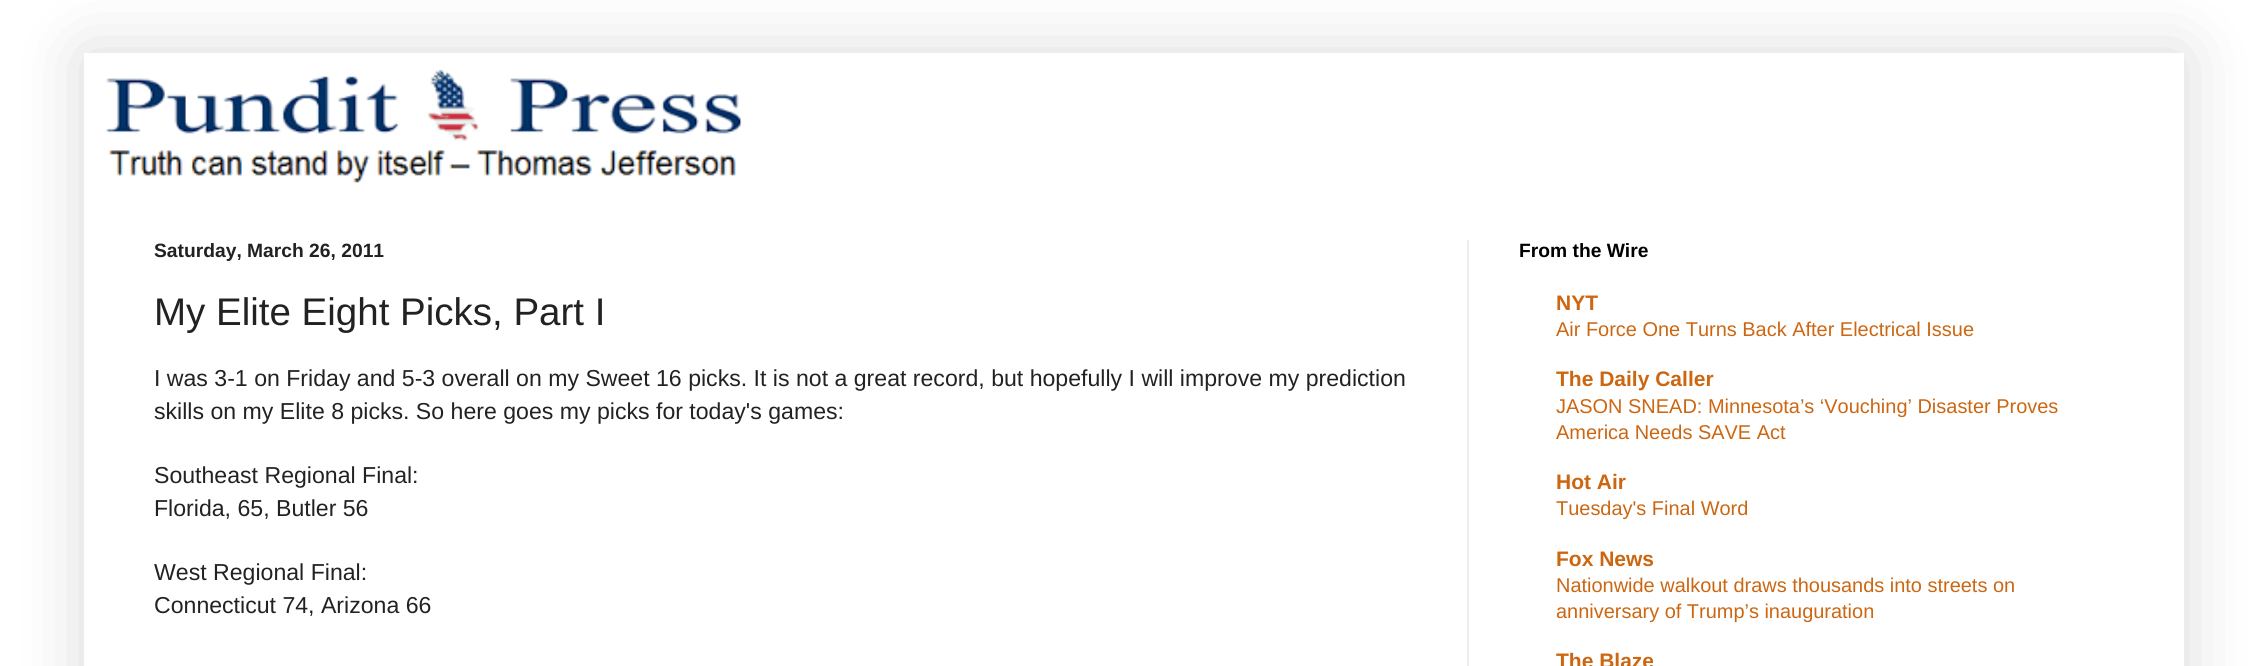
import math
import cairo

surface = cairo.ImageSurface(cairo.FORMAT_RGB24, 2268, 666)
cr = cairo.Context(surface)
options = cairo.FontOptions()
options.set_hint_metrics(cairo.HINT_METRICS_OFF)
options.set_hint_style(cairo.HINT_STYLE_NONE)
cr.set_font_options(options)
cr.set_miter_limit(4)


def rgb(code):
    cr.set_source_rgb(*(v / 255 for v in bytes.fromhex(code[-6:])))


def rrect(x, y, w, h, r):
    cr.new_sub_path()
    for i, (u, v) in enumerate([(x + w - r, y + h - r), (x + r, y + h - r), (x + r, y + r), (x + w - r, y + r)]):
        cr.arc(u, v, r, i * math.pi / 2, (i + 1) * math.pi / 2)
    cr.close_path()


def soft_shadow(x, y, w, h, r, blur, alpha):
    cr.push_group_with_content(cairo.CONTENT_ALPHA)
    cr.set_operator(cairo.OPERATOR_SOURCE)
    for i in range(15, -16, -2):
        e = blur * i / 6
        if min(w, h) + 2 * e > 0:
            cr.set_source_rgba(0, 0, 0, alpha * math.erfc((i - 1) / 8.5) / 2)
            rrect(x - e, y - e, w + 2 * e, h + 2 * e, max(0, min(r + e + blur * .6, min(w, h) / 2 + e)))
            cr.fill()
    cr.mask(cr.pop_group())


def image(path, x, y, w, h):
    cr.save()
    cr.set_source_surface(cairo.ImageSurface.create_from_png(path), x, y)
    cr.rectangle(x, y, w, h)
    cr.fill()
    cr.restore()


rgb("#ffffff")
cr.paint()
cr.save()
cr.set_fill_rule(cairo.FILL_RULE_EVEN_ODD)
cr.new_path()
cr.move_to(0, 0)
cr.line_to(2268, 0)
cr.line_to(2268, 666)
cr.line_to(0, 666)
cr.close_path()
cr.move_to(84, 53)
cr.line_to(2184, 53)
cr.line_to(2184, 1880)
cr.line_to(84, 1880)
cr.close_path()
cr.clip()
rgb("#000000")
soft_shadow(84, 53, 2100, 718, 0, 35, 0.15)
cr.restore()
image("img/1.png", 106, 70, 636, 113)
rgb("#eeeeee")
cr.rectangle(1467, 240, 2, 426)
cr.fill()
cr.select_font_face("Liberation Sans", cairo.FONT_SLANT_NORMAL, cairo.FONT_WEIGHT_BOLD)
cr.set_font_size(19.25)
rgb("#222222")
cr.move_to(154, 257)
cr.show_text("Saturday, March 26, 2011")
cr.select_font_face("Liberation Sans")
cr.set_font_size(38.5)
cr.move_to(154, 325)
cr.show_text("My Elite Eight Picks, Part I")
cr.set_font_size(23.1)
for x, y, s in [
    (154, 386, "I was 3-1 on Friday and 5-3 overall on my Sweet 16 picks. It is not a great record, but hopefully I will improve my prediction"),
    (154, 419, "skills on my Elite 8 picks. So here goes my picks for today's games:"),
    (154, 483, "Southeast Regional Final:"),
    (154, 516, "Florida, 65, Butler 56"),
    (154, 580, "West Regional Final:"),
    (154, 613, "Connecticut 74, Arizona 66"),
]:
    cr.move_to(x, y)
    cr.show_text(s)
cr.select_font_face("Liberation Sans", cairo.FONT_SLANT_NORMAL, cairo.FONT_WEIGHT_BOLD)
cr.set_font_size(19.25)
rgb("#000000")
cr.move_to(1519, 257)
cr.show_text("From the Wire")
cr.set_font_size(21)
rgb("#cc6611")
cr.move_to(1556, 310)
cr.show_text("NYT")
cr.select_font_face("Liberation Sans")
cr.set_font_size(19.95)
cr.move_to(1556, 336)
cr.show_text("Air Force One Turns Back After Electrical Issue")
cr.select_font_face("Liberation Sans", cairo.FONT_SLANT_NORMAL, cairo.FONT_WEIGHT_BOLD)
cr.set_font_size(21)
cr.move_to(1556, 386)
cr.show_text("The Daily Caller")
cr.select_font_face("Liberation Sans")
cr.set_font_size(19.95)
cr.move_to(1556, 413)
cr.show_text("JASON SNEAD: Minnesota’s ‘Vouching’ Disaster Proves")
cr.move_to(1556, 439)
cr.show_text("America Needs SAVE Act")
cr.select_font_face("Liberation Sans", cairo.FONT_SLANT_NORMAL, cairo.FONT_WEIGHT_BOLD)
cr.set_font_size(21)
cr.move_to(1556, 489)
cr.show_text("Hot Air")
cr.select_font_face("Liberation Sans")
cr.set_font_size(19.95)
cr.move_to(1556, 515)
cr.show_text("Tuesday's Final Word")
cr.select_font_face("Liberation Sans", cairo.FONT_SLANT_NORMAL, cairo.FONT_WEIGHT_BOLD)
cr.set_font_size(21)
cr.move_to(1556, 566)
cr.show_text("Fox News")
cr.select_font_face("Liberation Sans")
cr.set_font_size(19.95)
cr.move_to(1556, 592)
cr.show_text("Nationwide walkout draws thousands into streets on")
cr.move_to(1556, 618)
cr.show_text("anniversary of Trump’s inauguration")
cr.select_font_face("Liberation Sans", cairo.FONT_SLANT_NORMAL, cairo.FONT_WEIGHT_BOLD)
cr.set_font_size(21)
cr.move_to(1556, 668)
cr.show_text("The Blaze")
surface.write_to_png("page.png")
